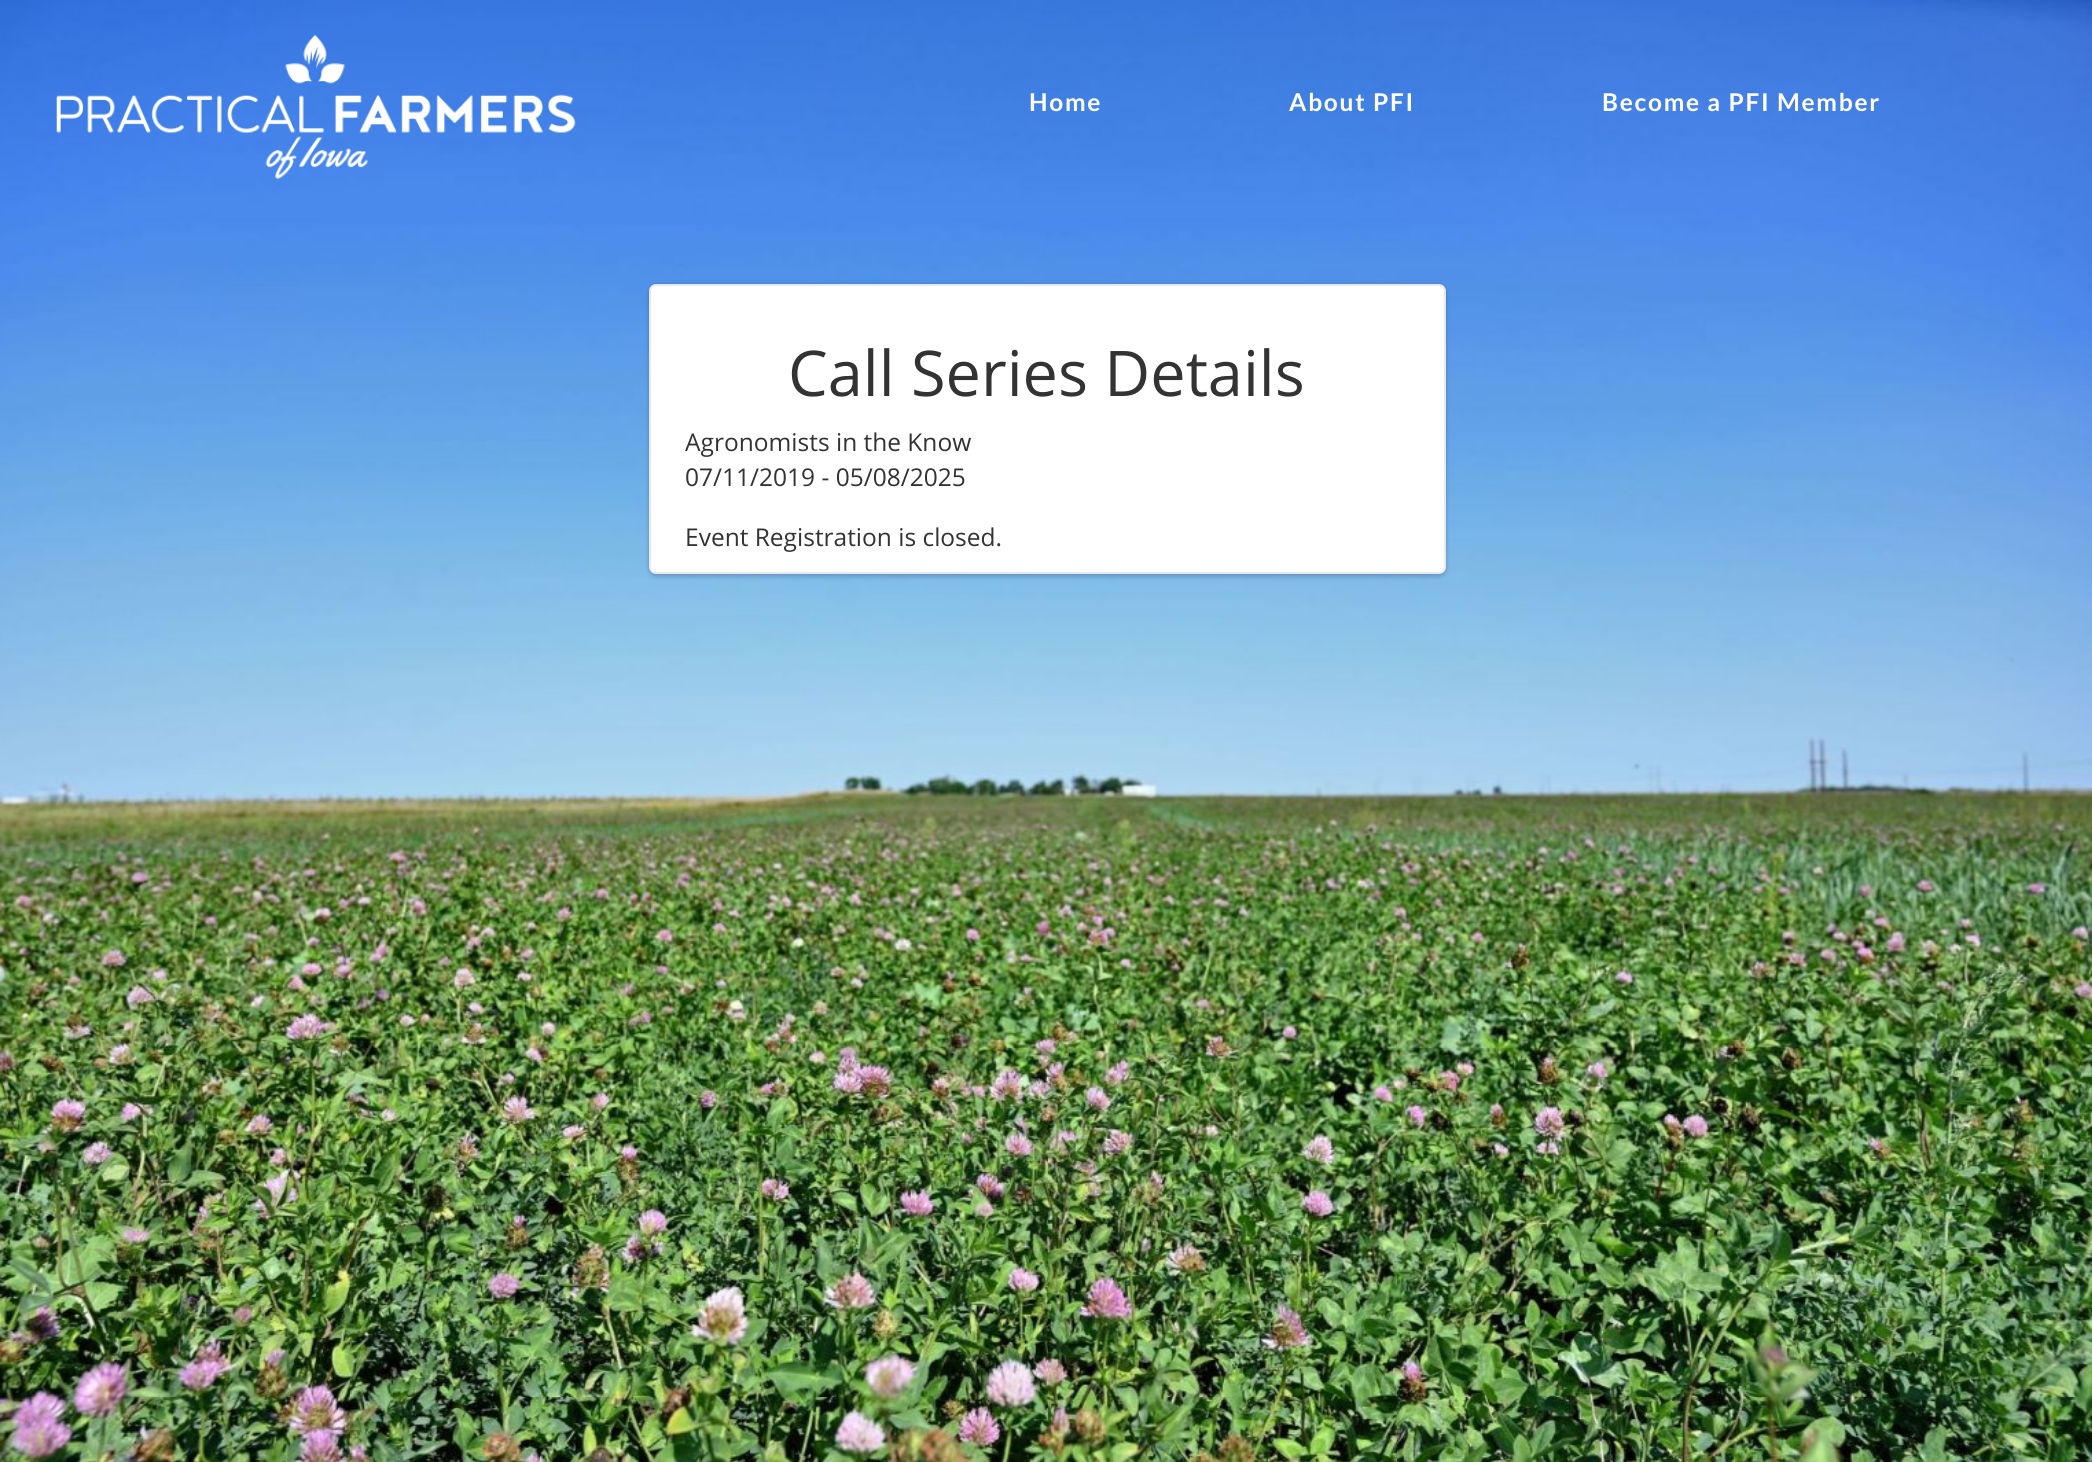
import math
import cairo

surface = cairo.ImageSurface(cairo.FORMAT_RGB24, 2092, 1462)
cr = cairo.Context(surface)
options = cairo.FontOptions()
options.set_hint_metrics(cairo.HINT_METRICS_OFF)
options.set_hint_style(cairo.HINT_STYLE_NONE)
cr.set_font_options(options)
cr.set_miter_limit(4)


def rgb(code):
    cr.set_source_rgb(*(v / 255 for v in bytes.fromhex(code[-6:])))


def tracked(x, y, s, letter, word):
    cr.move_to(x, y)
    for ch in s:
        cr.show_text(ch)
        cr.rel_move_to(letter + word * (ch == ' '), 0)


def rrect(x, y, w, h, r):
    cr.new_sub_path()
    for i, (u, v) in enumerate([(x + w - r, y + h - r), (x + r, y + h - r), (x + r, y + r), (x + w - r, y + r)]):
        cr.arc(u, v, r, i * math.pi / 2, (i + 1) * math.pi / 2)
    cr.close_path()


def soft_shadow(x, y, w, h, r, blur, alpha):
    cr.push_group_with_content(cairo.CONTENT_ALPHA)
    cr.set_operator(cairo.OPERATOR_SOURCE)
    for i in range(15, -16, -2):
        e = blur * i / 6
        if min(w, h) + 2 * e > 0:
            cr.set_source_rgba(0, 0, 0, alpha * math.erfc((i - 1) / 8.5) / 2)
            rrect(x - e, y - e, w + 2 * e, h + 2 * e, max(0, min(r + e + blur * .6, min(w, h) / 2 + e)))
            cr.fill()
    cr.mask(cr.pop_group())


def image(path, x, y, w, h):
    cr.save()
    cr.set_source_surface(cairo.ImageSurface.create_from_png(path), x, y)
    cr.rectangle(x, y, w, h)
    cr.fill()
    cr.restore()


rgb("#ffffff")
cr.paint()
image("img/1.png", 0, 0, 2092, 1462)
image("img/2.png", 56, 35, 520, 144)
rgb("#2f4975")
soft_shadow(649, 285, 797, 291, 7, 2.5, 0.2)
soft_shadow(649, 287, 797, 291, 7, 2, 0.12)
soft_shadow(649, 284, 797, 290, 7, 2, 0.14)
rgb("#ffffff")
rrect(650, 285, 795, 288, 6)
cr.fill_preserve()
rgb("#e6e9ee")
cr.stroke()
cr.select_font_face("Lato", cairo.FONT_SLANT_NORMAL, cairo.FONT_WEIGHT_BOLD)
cr.set_font_size(24.5)
rgb("#ffffff")
for x, y, s in [
    (1029, 111, "Home"),
    (1289, 111, "About PFI"),
    (1602, 111, "Become a PFI Member"),
]:
    tracked(x, y, s, 1.75, 0)
cr.select_font_face("Open Sans")
cr.set_font_size(63)
rgb("#333333")
cr.move_to(788, 396)
cr.show_text("Call Series Details")
cr.set_font_size(24.5)
for x, y, s in [
    (685, 451, "Agronomists in the Know"),
    (685, 486, "07/11/2019 - 05/08/2025"),
    (685, 546, "Event Registration is closed."),
]:
    cr.move_to(x, y)
    cr.show_text(s)
surface.write_to_png("page.png")
